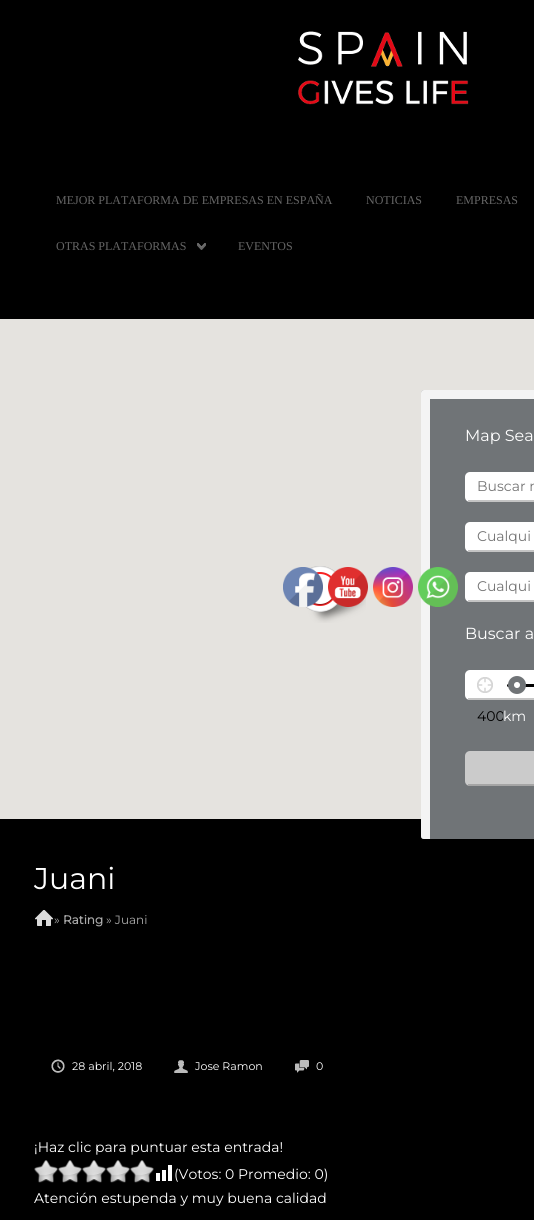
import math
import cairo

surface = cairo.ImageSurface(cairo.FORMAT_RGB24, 534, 1220)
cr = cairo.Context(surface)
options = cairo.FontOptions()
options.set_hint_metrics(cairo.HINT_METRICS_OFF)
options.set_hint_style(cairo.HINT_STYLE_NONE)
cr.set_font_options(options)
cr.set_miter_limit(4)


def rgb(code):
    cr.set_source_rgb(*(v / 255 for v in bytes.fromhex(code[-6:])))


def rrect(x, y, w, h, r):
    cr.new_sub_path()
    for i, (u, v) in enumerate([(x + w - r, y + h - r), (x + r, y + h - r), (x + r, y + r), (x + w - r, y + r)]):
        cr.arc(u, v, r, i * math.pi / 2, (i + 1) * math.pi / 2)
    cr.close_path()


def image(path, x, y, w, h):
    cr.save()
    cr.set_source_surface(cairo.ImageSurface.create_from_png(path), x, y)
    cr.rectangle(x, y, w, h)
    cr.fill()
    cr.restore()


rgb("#000000")
cr.paint()
image("img/1.png", 298, 31, 171, 74)
image("img/2.png", 197, 243, 9, 7)
rgb("#e5e3df")
cr.rectangle(0, 319, 534, 500)
cr.fill()
image("img/3.png", 305, 566, 61, 57)
rgb("#707477")
rrect(421, 390, 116, 449, 3)
cr.fill()
rgb("#f4f4f4")
cr.set_fill_rule(cairo.FILL_RULE_EVEN_ODD)
cr.new_path()
cr.move_to(424, 390)
cr.line_to(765, 390)
cr.curve_to(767, 390, 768, 391, 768, 393)
cr.line_to(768, 836)
cr.curve_to(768, 838, 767, 839, 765, 839)
cr.line_to(424, 839)
cr.curve_to(422, 839, 421, 838, 421, 836)
cr.line_to(421, 393)
cr.curve_to(421, 391, 422, 390, 424, 390)
cr.close_path()
cr.move_to(430, 399)
cr.line_to(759, 399)
cr.line_to(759, 839)
cr.line_to(430, 839)
cr.line_to(430, 836)
cr.close_path()
cr.fill()
rgb("#ffffff")
rrect(465, 472, 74, 30, 5)
cr.fill()
rgb("#c4c4c4")
cr.rectangle(468, 500, 66, 2)
cr.fill()
rgb("#ffffff")
rrect(465, 522, 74, 30, 5)
cr.fill()
rgb("#c4c4c4")
cr.rectangle(468, 550, 66, 2)
cr.fill()
rgb("#ffffff")
rrect(465, 572, 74, 30, 5)
cr.fill()
rgb("#c4c4c4")
cr.rectangle(468, 600, 66, 2)
cr.fill()
rgb("#ffffff")
rrect(465, 670, 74, 30, 5)
cr.fill()
rgb("#c4c4c4")
cr.rectangle(468, 698, 66, 2)
cr.fill()
image("img/4.png", 477, 677, 16, 16)
rgb("#000000")
rrect(507, 684, 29, 3, 1.5)
cr.fill()
rgb("#ffffff")
cr.arc(517, 685, 6, 0, 2 * math.pi)
cr.fill_preserve()
rgb("#707477")
cr.set_line_width(6)
cr.stroke()
rgb("#cbcbcb")
rrect(465, 751, 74, 35, 5)
cr.fill()
rgb("#a5a5a5")
cr.rectangle(468, 784, 66, 2)
cr.fill()
image("img/5.png", 35, 910, 18, 16)
image("img/6.png", 51, 1059, 14, 14)
image("img/7.png", 174, 1060, 14, 13)
image("img/8.png", 295, 1060, 14, 13)
image("img/9.png", 34, 1160, 120, 23)
image("img/10.png", 156, 1165, 16, 16)
image("img/11.png", 283, 567, 40, 40)
image("img/12.png", 328, 567, 40, 40)
image("img/13.png", 373, 567, 40, 40)
image("img/14.png", 418, 567, 40, 40)
cr.select_font_face("Liberation Serif")
cr.set_font_size(12)
rgb("#666666")
for x, y, s in [
    (56, 204, "MEJOR PLATAFORMA DE EMPRESAS EN ESPAÑA"),
    (366, 204, "NOTICIAS"),
    (456, 204, "EMPRESAS"),
    (56, 250, "OTRAS PLATAFORMAS"),
    (238, 250, "EVENTOS"),
]:
    cr.move_to(x, y)
    cr.show_text(s)
cr.select_font_face("Montserrat Thin")
cr.set_font_size(16)
rgb("#ffffff")
cr.move_to(465, 441)
cr.show_text("Map Sea")
cr.set_font_size(14)
rgb("#757575")
for x, y, s in [
    (477, 491, "Buscar n"),
    (477, 541, "Cualqui"),
    (477, 591, "Cualqui"),
]:
    cr.move_to(x, y)
    cr.show_text(s)
cr.set_font_size(16)
rgb("#ffffff")
cr.move_to(465, 639)
cr.show_text("Buscar a")
cr.save()
cr.set_fill_rule(cairo.FILL_RULE_WINDING)
cr.rectangle(477, 707, 26, 18)
cr.clip()
cr.set_font_size(14)
rgb("#000000")
cr.move_to(477, 721)
cr.show_text("400")
cr.restore()
cr.set_font_size(14)
cr.move_to(503, 721)
cr.show_text("km")
cr.set_font_size(30)
cr.move_to(34, 889)
cr.show_text("Juani")
cr.set_font_size(12)
rgb("#aaaaaa")
cr.move_to(54, 924)
cr.show_text("»")
cr.select_font_face("Montserrat", cairo.FONT_SLANT_NORMAL, cairo.FONT_WEIGHT_BOLD)
cr.move_to(63, 924)
cr.show_text("Rating")
cr.select_font_face("Montserrat Thin")
cr.move_to(106, 924)
cr.show_text("» Juani")
cr.set_font_size(11)
rgb("#ffffff")
for x, y, s in [
    (72, 1070, "28 abril, 2018"),
    (195, 1070, "Jose Ramon"),
    (316, 1070, "0"),
]:
    cr.move_to(x, y)
    cr.show_text(s)
cr.set_font_size(14)
for x, y, s in [
    (34, 1152, "¡Haz clic para puntuar esta entrada!"),
    (174, 1179, "(Votos: 0 Promedio: 0)"),
    (34, 1203, "Atención estupenda y muy buena calidad"),
]:
    cr.move_to(x, y)
    cr.show_text(s)
surface.write_to_png("page.png")
